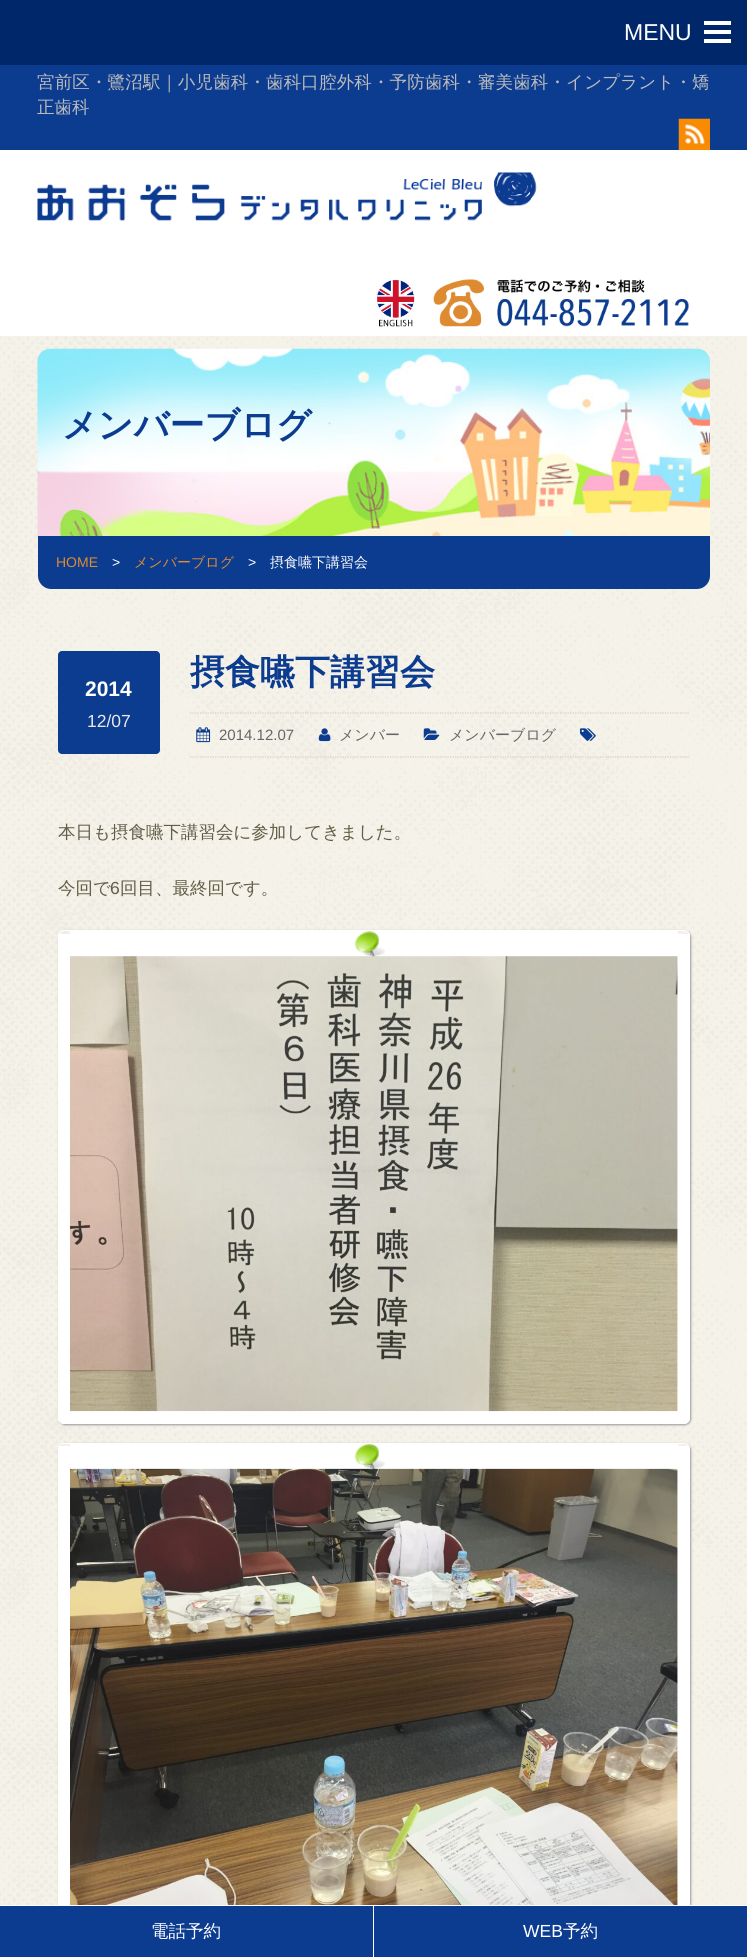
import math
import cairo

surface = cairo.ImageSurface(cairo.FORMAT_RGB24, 747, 1957)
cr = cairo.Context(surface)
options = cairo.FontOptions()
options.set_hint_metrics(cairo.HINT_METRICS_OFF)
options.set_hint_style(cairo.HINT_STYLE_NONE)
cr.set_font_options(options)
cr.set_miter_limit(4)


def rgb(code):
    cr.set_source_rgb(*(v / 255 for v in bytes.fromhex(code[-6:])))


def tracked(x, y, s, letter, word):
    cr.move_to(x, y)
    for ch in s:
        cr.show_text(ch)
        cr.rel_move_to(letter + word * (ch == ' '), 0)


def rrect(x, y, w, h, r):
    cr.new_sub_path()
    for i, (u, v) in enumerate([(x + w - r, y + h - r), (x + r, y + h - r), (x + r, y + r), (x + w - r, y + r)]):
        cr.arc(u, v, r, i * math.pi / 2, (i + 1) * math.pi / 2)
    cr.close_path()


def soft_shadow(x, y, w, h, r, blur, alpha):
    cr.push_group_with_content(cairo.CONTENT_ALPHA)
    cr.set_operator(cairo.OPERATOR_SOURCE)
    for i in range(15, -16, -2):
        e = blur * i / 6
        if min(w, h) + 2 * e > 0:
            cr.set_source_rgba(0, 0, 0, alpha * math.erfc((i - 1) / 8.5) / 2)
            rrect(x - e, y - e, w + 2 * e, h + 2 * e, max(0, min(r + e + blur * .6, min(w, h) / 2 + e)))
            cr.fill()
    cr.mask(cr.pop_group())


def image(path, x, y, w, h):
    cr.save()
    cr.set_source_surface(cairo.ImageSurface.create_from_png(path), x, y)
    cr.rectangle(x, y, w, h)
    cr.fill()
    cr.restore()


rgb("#ffffff")
cr.paint()
image("img/1.png", 0, 336, 747, 1569)
for x, y, w, h, color in [
    (0, 0, 747, 65, "#00276a"),
    (704, 21, 27, 4, "#ffffff"),
    (704, 30, 27, 4, "#ffffff"),
    (704, 39, 27, 4, "#ffffff"),
    (0, 65, 747, 85, "#0c3c90"),
]:
    rgb(color)
    cr.rectangle(x, y, w, h)
    cr.fill()
image("img/2.png", 678, 118, 32, 32)
image("img/3.png", 37, 172, 500, 49)
image("img/4.png", 376, 279, 39, 48)
image("img/5.png", 433, 279, 256, 48)
image("img/6.png", 37, 348, 673, 189)
cr.new_path()
cr.move_to(38, 536)
cr.line_to(710, 536)
cr.line_to(710, 576)
cr.curve_to(710, 583, 704, 589, 697, 589)
cr.line_to(51, 589)
cr.curve_to(44, 589, 38, 583, 38, 576)
cr.close_path()
cr.fill()
rrect(58, 651, 102, 103, 4)
cr.fill()
cr.new_path()
cr.move_to(190, 713)
cr.line_to(690, 713)
rgb("#dfcab4")
cr.set_line_width(1.2)
cr.set_dash([1.25, 1.25])
cr.stroke()
cr.new_path()
cr.move_to(190, 757)
cr.line_to(690, 757)
cr.stroke()
image("img/7.png", 196, 727, 15, 16)
image("img/8.png", 318, 728, 13, 14)
image("img/9.png", 423, 728, 17, 12)
image("img/10.png", 580, 728, 16, 13)
cr.save()
cr.set_fill_rule(cairo.FILL_RULE_EVEN_ODD)
cr.new_path()
cr.move_to(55, 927)
cr.line_to(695, 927)
cr.line_to(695, 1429)
cr.line_to(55, 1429)
cr.close_path()
cr.move_to(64, 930)
cr.line_to(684, 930)
cr.curve_to(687.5, 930, 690, 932.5, 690, 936)
cr.line_to(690, 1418)
cr.curve_to(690, 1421.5, 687.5, 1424, 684, 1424)
cr.line_to(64, 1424)
cr.curve_to(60.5, 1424, 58, 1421.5, 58, 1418)
cr.line_to(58, 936)
cr.curve_to(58, 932.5, 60.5, 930, 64, 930)
cr.close_path()
cr.clip()
rgb("#999999")
soft_shadow(59, 931, 632, 494, 6, 1, 1)
cr.restore()
rgb("#ffffff")
cr.rectangle(70, 931, 608, 480)
cr.fill()
image("img/11.png", 70, 931, 608, 480)
rrect(58.5, 930.5, 631, 493, 5.5)
cr.set_line_width(1)
cr.set_dash([])
cr.stroke()
for x, y, w, h, color in [
    (678, 934, 11, 487, "#ffffff"),
    (61, 1411, 627, 12, "#ffffff"),
    (59, 934, 11, 487, "#ffffff"),
]:
    rgb(color)
    cr.rectangle(x, y, w, h)
    cr.fill()
image("img/12.png", 70, 956, 608, 456)
cr.save()
cr.set_fill_rule(cairo.FILL_RULE_EVEN_ODD)
cr.new_path()
cr.move_to(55, 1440)
cr.line_to(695, 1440)
cr.line_to(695, 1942)
cr.line_to(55, 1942)
cr.close_path()
cr.move_to(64, 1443)
cr.line_to(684, 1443)
cr.curve_to(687.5, 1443, 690, 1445.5, 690, 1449)
cr.line_to(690, 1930)
cr.curve_to(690, 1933.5, 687.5, 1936, 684, 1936)
cr.line_to(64, 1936)
cr.curve_to(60.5, 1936, 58, 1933.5, 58, 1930)
cr.line_to(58, 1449)
cr.curve_to(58, 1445.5, 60.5, 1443, 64, 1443)
cr.close_path()
cr.clip()
rgb("#999999")
soft_shadow(59, 1444, 632, 494, 6, 1, 1)
cr.restore()
cr.rectangle(70, 1444, 608, 461)
cr.fill()
image("img/13.png", 70, 1444, 608, 461)
rrect(58.5, 1443.5, 631, 492, 5.5)
cr.stroke()
cr.rectangle(678, 1446, 11, 459)
cr.fill()
cr.rectangle(59, 1446, 11, 459)
cr.fill()
image("img/14.png", 70, 1468, 608, 437)
for x, y, w, h, color in [
    (57, 1905, 636, 1, "#ffffff"),
    (0, 1906, 373, 51, "#0c3c90"),
    (373, 1936, 1, 4, "#ffffff"),
    (374, 1906, 373, 51, "#0c3c90"),
]:
    rgb(color)
    cr.rectangle(x, y, w, h)
    cr.fill()
cr.select_font_face("Liberation Sans")
cr.set_font_size(23)
rgb("#ffffff")
cr.move_to(624, 40)
cr.show_text("MENU")
cr.select_font_face("WenQuanYi Zen Hei Medium")
cr.set_font_size(17.5)
rgb("#bbbbbb")
tracked(37, 88, "宮前区・鷺沼駅｜小児歯科・歯科口腔外科・予防歯科・審美歯科・インプラント・矯", 0.15, 0)
cr.move_to(37, 113)
cr.show_text("正歯科")
cr.select_font_face("WenQuanYi Zen Hei", cairo.FONT_SLANT_NORMAL, cairo.FONT_WEIGHT_BOLD)
cr.set_font_size(35)
rgb("#0c3c90")
cr.move_to(62, 437)
cr.show_text("メンバーブログ")
cr.select_font_face("Liberation Sans")
cr.set_font_size(14)
rgb("#de8a30")
cr.move_to(56, 567)
cr.show_text("HOME")
rgb("#ffffff")
cr.move_to(112, 567)
cr.show_text(">")
cr.select_font_face("WenQuanYi Zen Hei Medium")
rgb("#de8a30")
cr.move_to(134, 567)
cr.show_text("メンバーブログ")
cr.select_font_face("Liberation Sans")
rgb("#ffffff")
cr.move_to(248, 567)
cr.show_text(">")
cr.select_font_face("WenQuanYi Zen Hei Medium")
cr.move_to(270, 567)
cr.show_text("摂食嚥下講習会")
cr.select_font_face("WenQuanYi Zen Hei", cairo.FONT_SLANT_NORMAL, cairo.FONT_WEIGHT_BOLD)
cr.set_font_size(35)
rgb("#0c3c90")
cr.move_to(190, 684)
cr.show_text("摂食嚥下講習会")
cr.select_font_face("Liberation Sans", cairo.FONT_SLANT_NORMAL, cairo.FONT_WEIGHT_BOLD)
cr.set_font_size(21)
rgb("#ffffff")
cr.move_to(85, 696)
cr.show_text("2014")
cr.select_font_face("Liberation Sans")
cr.set_font_size(17.5)
rgb("#e9e9e9")
cr.move_to(87, 727)
cr.show_text("12/07")
cr.set_font_size(15)
rgb("#666666")
cr.move_to(219, 740)
cr.show_text("2014.12.07")
cr.select_font_face("WenQuanYi Zen Hei Medium")
cr.move_to(339, 740)
cr.show_text("メンバー")
cr.move_to(449, 740)
cr.show_text("メンバーブログ")
cr.set_font_size(17.5)
rgb("#625d45")
cr.move_to(58, 838)
cr.show_text("本日も摂食嚥下講習会に参加してきました。")
cr.move_to(58, 894)
cr.show_text("今回で")
cr.select_font_face("Liberation Sans")
cr.move_to(110, 894)
cr.show_text("6")
cr.select_font_face("WenQuanYi Zen Hei Medium")
cr.move_to(120, 894)
cr.show_text("回目、最終回です。")
rgb("#ffffff")
cr.move_to(151, 1937)
cr.show_text("電話予約")
cr.select_font_face("Liberation Sans")
cr.move_to(523, 1937)
cr.show_text("WEB")
cr.select_font_face("WenQuanYi Zen Hei Medium")
cr.move_to(563, 1937)
cr.show_text("予約")
surface.write_to_png("page.png")
